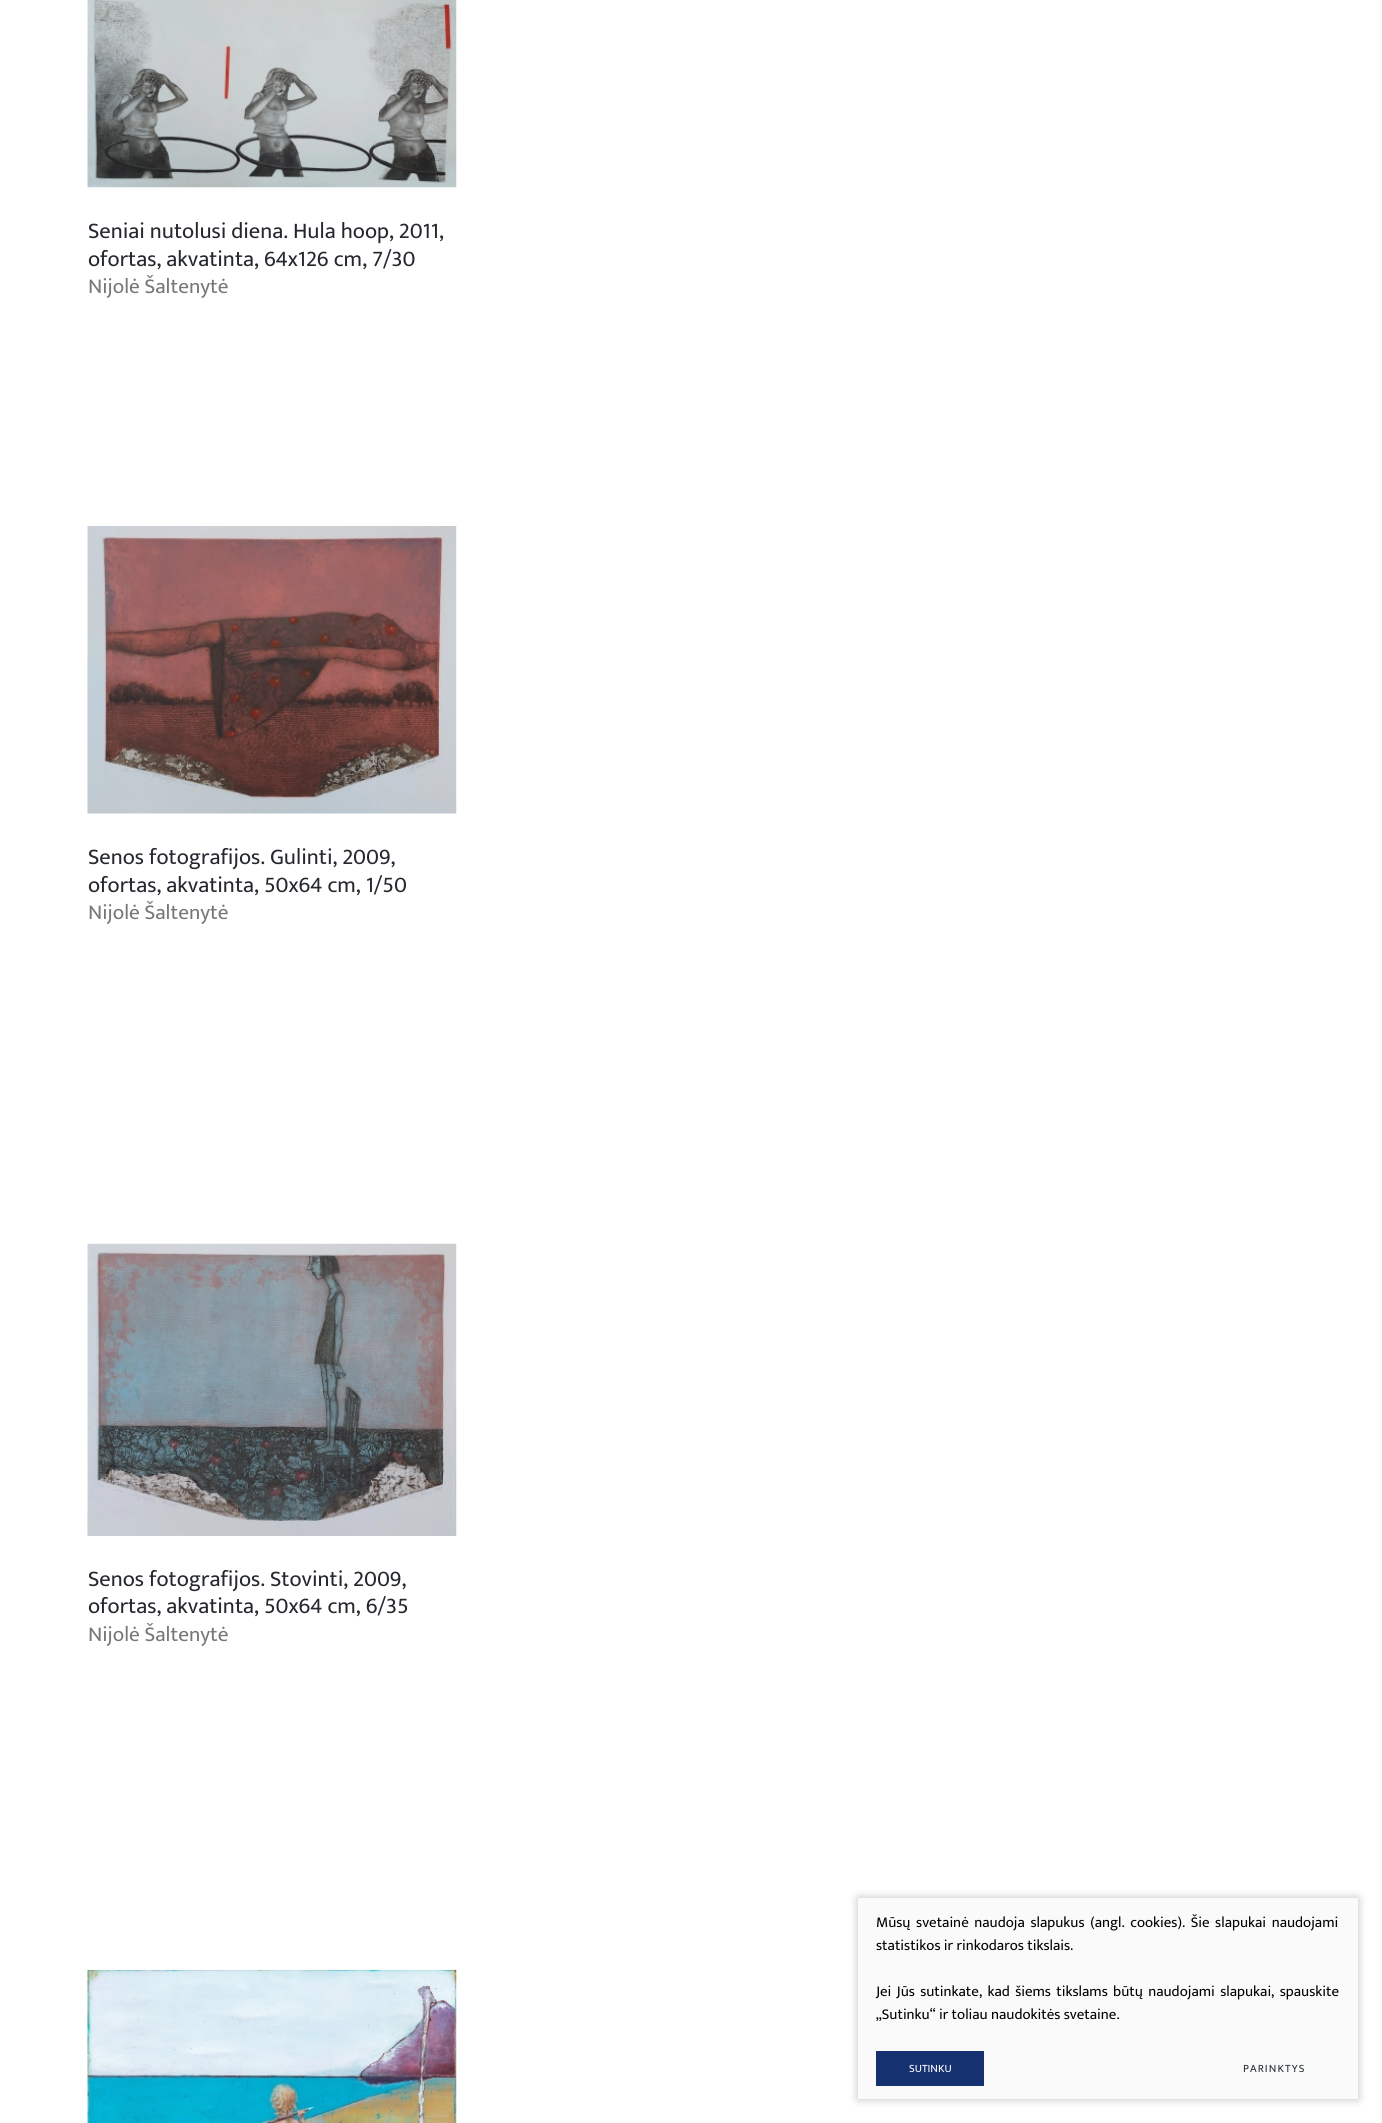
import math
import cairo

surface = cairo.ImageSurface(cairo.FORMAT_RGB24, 1382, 2123)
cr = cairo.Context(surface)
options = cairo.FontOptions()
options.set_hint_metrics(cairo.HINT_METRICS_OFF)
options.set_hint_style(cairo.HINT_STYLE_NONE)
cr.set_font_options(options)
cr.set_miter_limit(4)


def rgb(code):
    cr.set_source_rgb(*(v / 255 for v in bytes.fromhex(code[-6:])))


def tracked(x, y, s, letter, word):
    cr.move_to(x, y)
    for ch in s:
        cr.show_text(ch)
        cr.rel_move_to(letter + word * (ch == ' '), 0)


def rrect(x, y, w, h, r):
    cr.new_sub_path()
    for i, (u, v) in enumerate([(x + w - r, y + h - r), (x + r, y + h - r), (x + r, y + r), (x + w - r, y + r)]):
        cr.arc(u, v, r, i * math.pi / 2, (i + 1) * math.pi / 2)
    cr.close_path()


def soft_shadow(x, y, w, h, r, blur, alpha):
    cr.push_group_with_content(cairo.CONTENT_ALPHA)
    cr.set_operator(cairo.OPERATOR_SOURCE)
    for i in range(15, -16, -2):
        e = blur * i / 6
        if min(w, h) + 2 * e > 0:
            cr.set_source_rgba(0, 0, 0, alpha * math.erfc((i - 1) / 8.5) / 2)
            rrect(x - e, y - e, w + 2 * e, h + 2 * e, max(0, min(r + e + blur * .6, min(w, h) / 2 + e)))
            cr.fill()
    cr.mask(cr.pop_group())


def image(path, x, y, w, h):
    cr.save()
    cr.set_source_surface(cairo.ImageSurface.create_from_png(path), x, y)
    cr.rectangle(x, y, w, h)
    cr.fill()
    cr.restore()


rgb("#ffffff")
cr.paint()
image("img/1.png", 87, 0, 370, 188)
image("img/2.png", 87, 526, 370, 288)
image("img/3.png", 87, 1243, 370, 293)
image("img/4.png", 87, 1969, 370, 154)
rgb("#000000")
soft_shadow(858, 1898, 500, 201, 0, 4.5, 0.25)
rgb("#fafafa")
cr.rectangle(858, 1898, 500, 201)
cr.fill()
rgb("#16316f")
cr.rectangle(876, 2051, 108, 35)
cr.fill()
cr.select_font_face("Mukta")
cr.set_font_size(22.5)
rgb("#25282e")
cr.move_to(88, 238)
cr.show_text("Seniai nutolusi diena. Hula hoop, 2011,")
cr.move_to(88, 266)
cr.show_text("ofortas, akvatinta, 64x126 cm, 7/30")
cr.set_font_size(21.25)
rgb("#777777")
cr.move_to(88, 293)
cr.show_text("Nijolė Šaltenytė")
cr.set_font_size(22.5)
rgb("#25282e")
cr.move_to(88, 864)
cr.show_text("Senos fotografijos. Gulinti, 2009,")
cr.move_to(88, 892)
cr.show_text("ofortas, akvatinta, 50x64 cm, 1/50")
cr.set_font_size(21.25)
rgb("#777777")
cr.move_to(88, 919)
cr.show_text("Nijolė Šaltenytė")
cr.set_font_size(22.5)
rgb("#25282e")
cr.move_to(88, 1586)
cr.show_text("Senos fotografijos. Stovinti, 2009,")
cr.move_to(88, 1613)
cr.show_text("ofortas, akvatinta, 50x64 cm, 6/35")
cr.set_font_size(21.25)
rgb("#777777")
cr.move_to(88, 1641)
cr.show_text("Nijolė Šaltenytė")
cr.set_font_size(15)
rgb("#000000")
tracked(876, 1927, "Mūsų svetainė naudoja slapukus (angl. cookies). Šie slapukai naudojami", 0, 2.25)
cr.move_to(876, 1950)
cr.show_text("statistikos ir rinkodaros tikslais.")
tracked(876, 1996, "Jei Jūs sutinkate, kad šiems tikslams būtų naudojami slapukai, spauskite", 0, 2)
cr.move_to(876, 2019)
cr.show_text("„Sutinku“ ir toliau naudokitės svetaine.")
cr.set_font_size(11.25)
rgb("#ffffff")
cr.move_to(909, 2072)
cr.show_text("SUTINKU")
rgb("#263238")
tracked(1243, 2072, "PARINKTYS", 1.1, 0)
surface.write_to_png("page.png")
